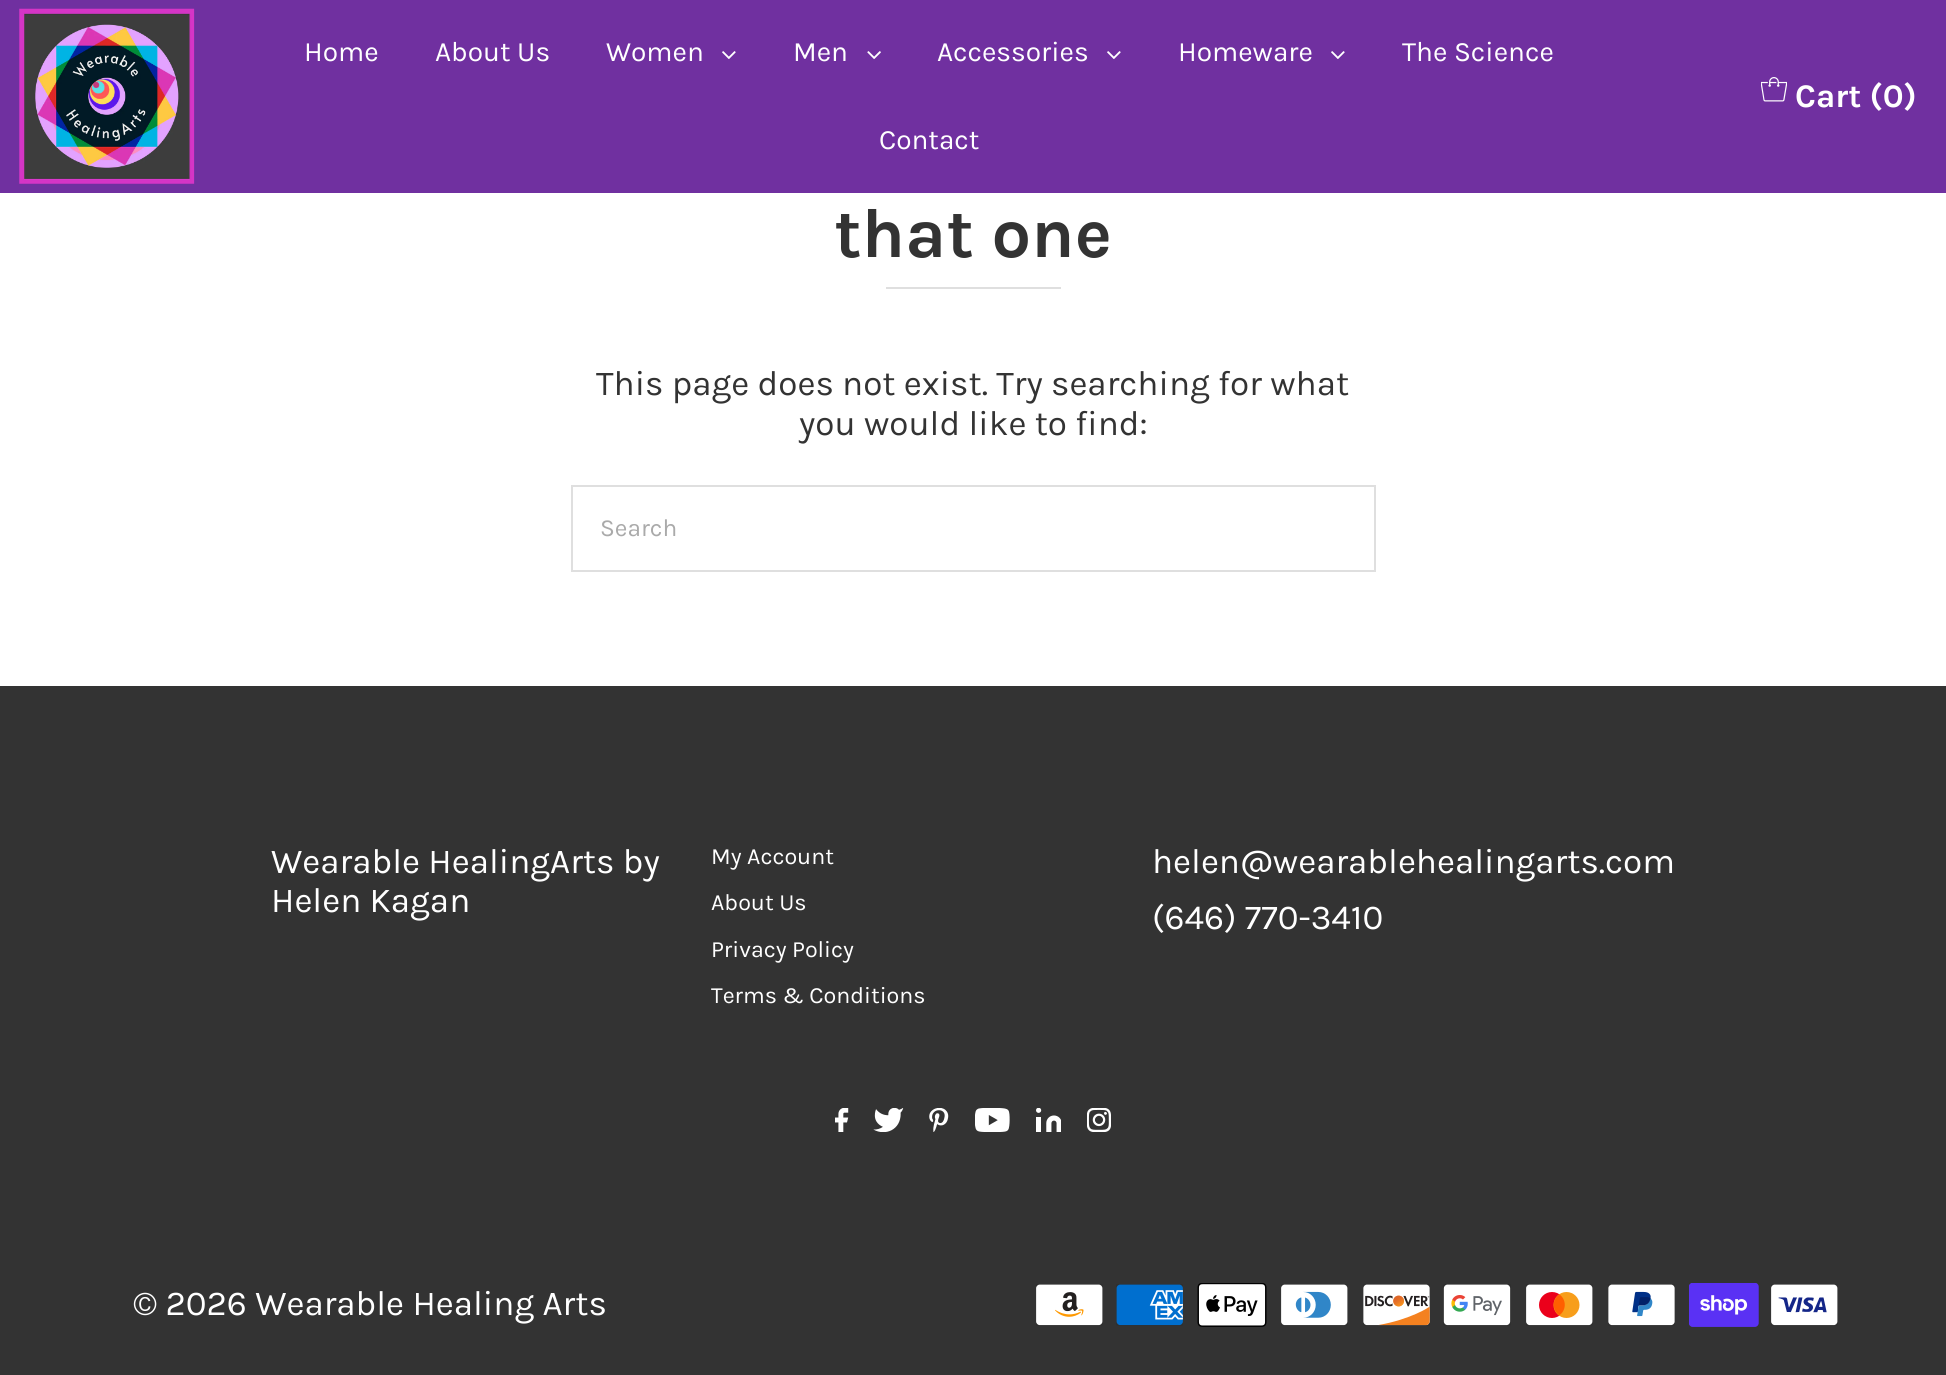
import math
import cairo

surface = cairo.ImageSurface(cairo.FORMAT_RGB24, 1946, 1375)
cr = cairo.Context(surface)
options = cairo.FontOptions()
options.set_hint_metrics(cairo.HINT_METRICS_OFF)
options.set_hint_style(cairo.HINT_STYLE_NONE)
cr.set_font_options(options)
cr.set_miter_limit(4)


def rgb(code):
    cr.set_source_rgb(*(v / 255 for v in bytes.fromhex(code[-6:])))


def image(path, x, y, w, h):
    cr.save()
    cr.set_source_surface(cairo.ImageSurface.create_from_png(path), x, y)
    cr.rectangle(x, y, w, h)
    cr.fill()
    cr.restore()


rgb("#ffffff")
cr.paint()
rgb("#7030a0")
cr.rectangle(0, 0, 1946, 193)
cr.fill()
image("img/1.png", 19, 8, 176, 176)
image("img/2.png", 722, 51, 14, 8)
image("img/3.png", 867, 51, 14, 8)
image("img/2.png", 1107, 51, 14, 8)
image("img/2.png", 1331, 51, 14, 8)
image("img/4.png", 1761, 77, 26, 25)
rgb("#dfdfdf")
cr.rectangle(886, 287, 175, 2)
cr.fill()
cr.rectangle(572, 486, 803, 85)
cr.stroke()
rgb("#333333")
cr.rectangle(0, 686, 1946, 689)
cr.fill()
image("img/5.png", 835, 1108, 14, 24)
image("img/6.png", 873, 1108, 31, 24)
image("img/7.png", 929, 1108, 20, 24)
image("img/8.png", 975, 1108, 35, 24)
image("img/9.png", 1036, 1108, 25, 24)
image("img/10.png", 1087, 1108, 24, 24)
image("img/11.png", 1036, 1284, 67, 42)
image("img/12.png", 1116, 1284, 67, 42)
image("img/13.png", 1197, 1283, 70, 44)
image("img/14.png", 1281, 1284, 67, 42)
image("img/15.png", 1363, 1284, 67, 42)
image("img/16.png", 1443, 1284, 68, 42)
image("img/17.png", 1526, 1284, 67, 42)
image("img/18.png", 1608, 1284, 67, 42)
image("img/19.png", 1689, 1283, 70, 44)
image("img/20.png", 1771, 1284, 67, 42)
cr.select_font_face("Karla")
cr.set_font_size(28)
rgb("#ffffff")
for x, y, s in [
    (304, 61, "Home"),
    (435, 61, "About Us"),
    (606, 61, "Women"),
    (793, 61, "Men"),
    (937, 61, "Accessories"),
    (1178, 61, "Homeware"),
    (1402, 61, "The Science"),
    (879, 149, "Contact"),
]:
    cr.move_to(x, y)
    cr.show_text(s)
cr.select_font_face("Karla", cairo.FONT_SLANT_NORMAL, cairo.FONT_WEIGHT_BOLD)
cr.set_font_size(33)
cr.move_to(1795, 107)
cr.show_text("Cart (0)")
cr.set_font_size(70)
rgb("#333333")
cr.move_to(834, 257)
cr.show_text("that one")
cr.select_font_face("Karla")
cr.set_font_size(35)
cr.move_to(596, 395)
cr.show_text("This page does not exist. Try searching for what")
cr.move_to(799, 435)
cr.show_text("you would like to find:")
cr.set_font_size(24.5)
rgb("#aaaaaa")
cr.move_to(600, 536)
cr.show_text("Search")
cr.set_font_size(35)
rgb("#ffffff")
cr.move_to(271, 873)
cr.show_text("Wearable HealingArts by")
cr.move_to(271, 912)
cr.show_text("Helen Kagan")
cr.set_font_size(23.25)
for x, y, s in [
    (711, 864, "My Account"),
    (711, 910, "About Us"),
    (711, 957, "Privacy Policy"),
    (711, 1003, "Terms & Conditions"),
]:
    cr.move_to(x, y)
    cr.show_text(s)
cr.set_font_size(35)
for x, y, s in [
    (1152, 873, "helen@wearablehealingarts.com"),
    (1152, 929, "(646) 770-3410"),
    (133, 1315, "© 2026 Wearable Healing Arts"),
]:
    cr.move_to(x, y)
    cr.show_text(s)
surface.write_to_png("page.png")
